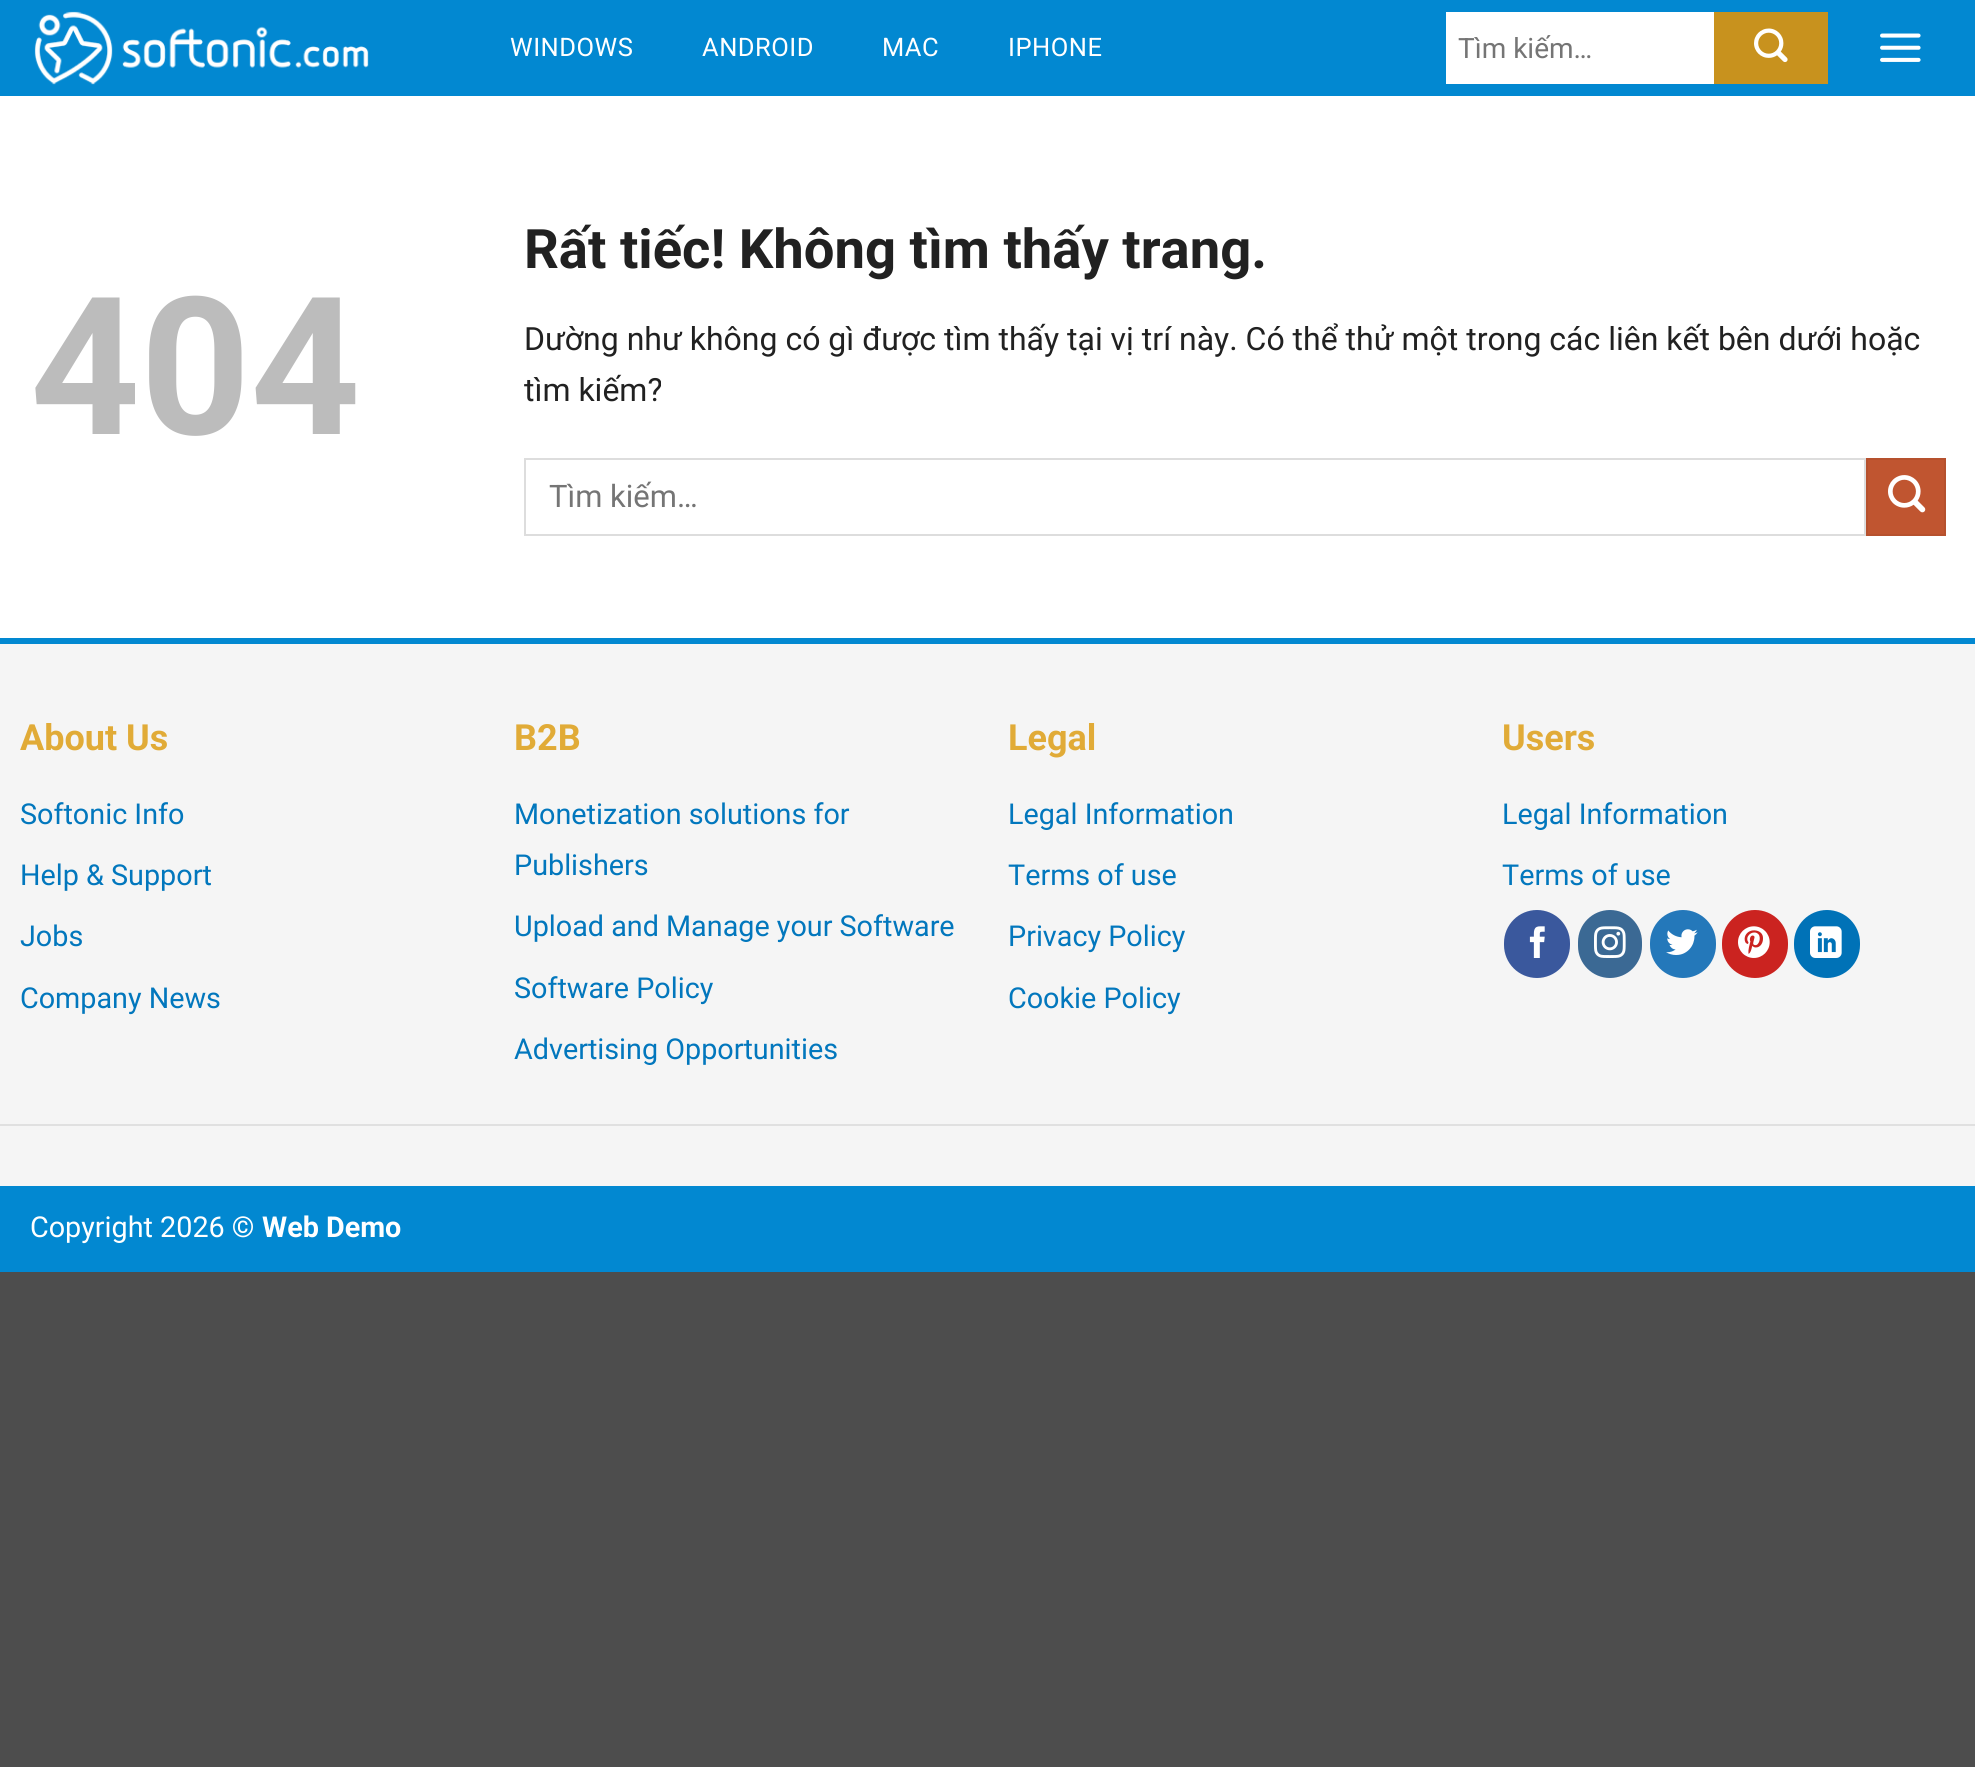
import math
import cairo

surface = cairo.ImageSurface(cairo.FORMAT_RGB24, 1975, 1767)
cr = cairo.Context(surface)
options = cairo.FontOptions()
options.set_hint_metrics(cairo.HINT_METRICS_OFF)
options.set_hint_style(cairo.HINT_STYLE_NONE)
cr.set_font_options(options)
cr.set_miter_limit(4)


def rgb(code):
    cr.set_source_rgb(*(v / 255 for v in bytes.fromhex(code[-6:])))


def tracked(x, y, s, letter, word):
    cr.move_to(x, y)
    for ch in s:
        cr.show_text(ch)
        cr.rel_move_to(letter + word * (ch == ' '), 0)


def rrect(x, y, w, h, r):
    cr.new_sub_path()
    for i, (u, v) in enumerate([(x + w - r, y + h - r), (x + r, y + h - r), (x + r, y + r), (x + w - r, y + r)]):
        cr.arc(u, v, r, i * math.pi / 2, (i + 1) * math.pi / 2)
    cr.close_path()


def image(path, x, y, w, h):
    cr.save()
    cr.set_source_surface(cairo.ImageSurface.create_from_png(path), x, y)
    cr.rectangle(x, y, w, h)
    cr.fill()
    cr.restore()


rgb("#4d4d4d")
cr.paint()
rgb("#ffffff")
cr.rectangle(0, 96, 1975, 542)
cr.fill()
rgb("#0288d1")
cr.rectangle(0, 0, 1975, 96)
cr.fill()
image("img/1.png", 34, 11, 335, 74)
rgb("#ffffff")
cr.rectangle(1446, 12, 268, 72)
cr.fill()
rgb("#c8921e")
cr.rectangle(1714, 12, 114, 72)
cr.fill()
image("img/2.png", 1754, 28, 34, 35)
image("img/3.png", 1880, 33, 41, 29)
cr.rectangle(525, 459, 1340, 76)
rgb("#dddddd")
cr.stroke()
rgb("#c05530")
cr.rectangle(1867, 459, 78, 76)
cr.fill_preserve()
rgb("#b6512e")
cr.stroke()
image("img/4.png", 1888, 475, 38, 38)
for x, y, w, h, color in [
    (0, 644, 1975, 542, "#f5f5f5"),
    (0, 638, 1975, 6, "#0288d1"),
    (0, 1124, 1975, 2, "#e0e0e0"),
]:
    rgb(color)
    cr.rectangle(x, y, w, h)
    cr.fill()
rgb("#3a589d")
rrect(1505, 911, 64, 66, 32)
cr.fill_preserve()
cr.stroke()
image("img/5.png", 1529, 926, 16, 32)
rgb("#3b6994")
rrect(1579, 911, 62, 66, 31)
cr.fill_preserve()
cr.stroke()
image("img/6.png", 1594, 926, 32, 32)
rgb("#2478ba")
rrect(1651, 911, 64, 66, 32)
cr.fill_preserve()
cr.stroke()
image("img/7.png", 1666, 929, 32, 26)
rgb("#cb2320")
rrect(1723, 911, 64, 66, 32)
cr.fill_preserve()
cr.stroke()
image("img/8.png", 1738, 926, 32, 32)
rgb("#0072b7")
rrect(1795, 911, 64, 66, 32)
cr.fill_preserve()
cr.stroke()
image("img/9.png", 1810, 926, 32, 32)
rgb("#0288d1")
cr.rectangle(0, 1186, 1975, 86)
cr.fill()
cr.select_font_face("Roboto")
cr.set_font_size(25.5)
rgb("#ffffff")
for x, y, s in [
    (510, 56, "WINDOWS"),
    (702, 56, "ANDROID"),
    (882, 56, "MAC"),
    (1008, 56, "IPHONE"),
]:
    tracked(x, y, s, 0.5, 0)
cr.set_font_size(28)
rgb("#757575")
cr.move_to(1458, 58)
cr.show_text("Tìm kiếm…")
cr.select_font_face("Roboto", cairo.FONT_SLANT_NORMAL, cairo.FONT_WEIGHT_BOLD)
cr.set_font_size(192)
rgb("#bcbcbc")
cr.move_to(30, 434)
cr.show_text("404")
cr.set_font_size(54.4)
rgb("#212121")
cr.move_to(524, 268)
cr.show_text("Rất tiếc! Không tìm thấy trang.")
cr.select_font_face("Roboto")
cr.set_font_size(32)
cr.move_to(524, 350)
cr.show_text("Dường như không có gì được tìm thấy tại vị trí này. Có thể thử một trong các liên kết bên dưới hoặc")
cr.move_to(524, 401)
cr.show_text("tìm kiếm?")
cr.set_font_size(31)
rgb("#757575")
cr.move_to(549, 507)
cr.show_text("Tìm kiếm…")
cr.select_font_face("Roboto", cairo.FONT_SLANT_NORMAL, cairo.FONT_WEIGHT_BOLD)
cr.set_font_size(36)
rgb("#e1ab37")
cr.move_to(20, 750)
cr.show_text("About Us")
cr.select_font_face("Roboto")
cr.set_font_size(28.75)
rgb("#0277bd")
for x, y, s in [
    (20, 824, "Softonic Info"),
    (20, 885, "Help & Support"),
    (20, 946, "Jobs"),
    (20, 1008, "Company News"),
]:
    cr.move_to(x, y)
    cr.show_text(s)
cr.select_font_face("Roboto", cairo.FONT_SLANT_NORMAL, cairo.FONT_WEIGHT_BOLD)
cr.set_font_size(36)
rgb("#e1ab37")
cr.move_to(514, 750)
cr.show_text("B2B")
cr.select_font_face("Roboto")
cr.set_font_size(28.75)
rgb("#0277bd")
for x, y, s in [
    (514, 824, "Monetization solutions for"),
    (514, 875, "Publishers"),
    (514, 936, "Upload and Manage your Software"),
    (514, 998, "Software Policy"),
    (514, 1059, "Advertising Opportunities"),
]:
    cr.move_to(x, y)
    cr.show_text(s)
cr.select_font_face("Roboto", cairo.FONT_SLANT_NORMAL, cairo.FONT_WEIGHT_BOLD)
cr.set_font_size(36)
rgb("#e1ab37")
cr.move_to(1008, 750)
cr.show_text("Legal")
cr.select_font_face("Roboto")
cr.set_font_size(28.75)
rgb("#0277bd")
for x, y, s in [
    (1008, 824, "Legal Information"),
    (1008, 885, "Terms of use"),
    (1008, 946, "Privacy Policy"),
    (1008, 1008, "Cookie Policy"),
]:
    cr.move_to(x, y)
    cr.show_text(s)
cr.select_font_face("Roboto", cairo.FONT_SLANT_NORMAL, cairo.FONT_WEIGHT_BOLD)
cr.set_font_size(36)
rgb("#e1ab37")
cr.move_to(1502, 750)
cr.show_text("Users")
cr.select_font_face("Roboto")
cr.set_font_size(28.75)
rgb("#0277bd")
cr.move_to(1502, 824)
cr.show_text("Legal Information")
cr.move_to(1502, 885)
cr.show_text("Terms of use")
rgb("#ffffff")
cr.move_to(30, 1237)
cr.show_text("Copyright 2026 ©")
cr.select_font_face("Roboto", cairo.FONT_SLANT_NORMAL, cairo.FONT_WEIGHT_BOLD)
cr.move_to(262, 1237)
cr.show_text("Web Demo")
surface.write_to_png("page.png")
